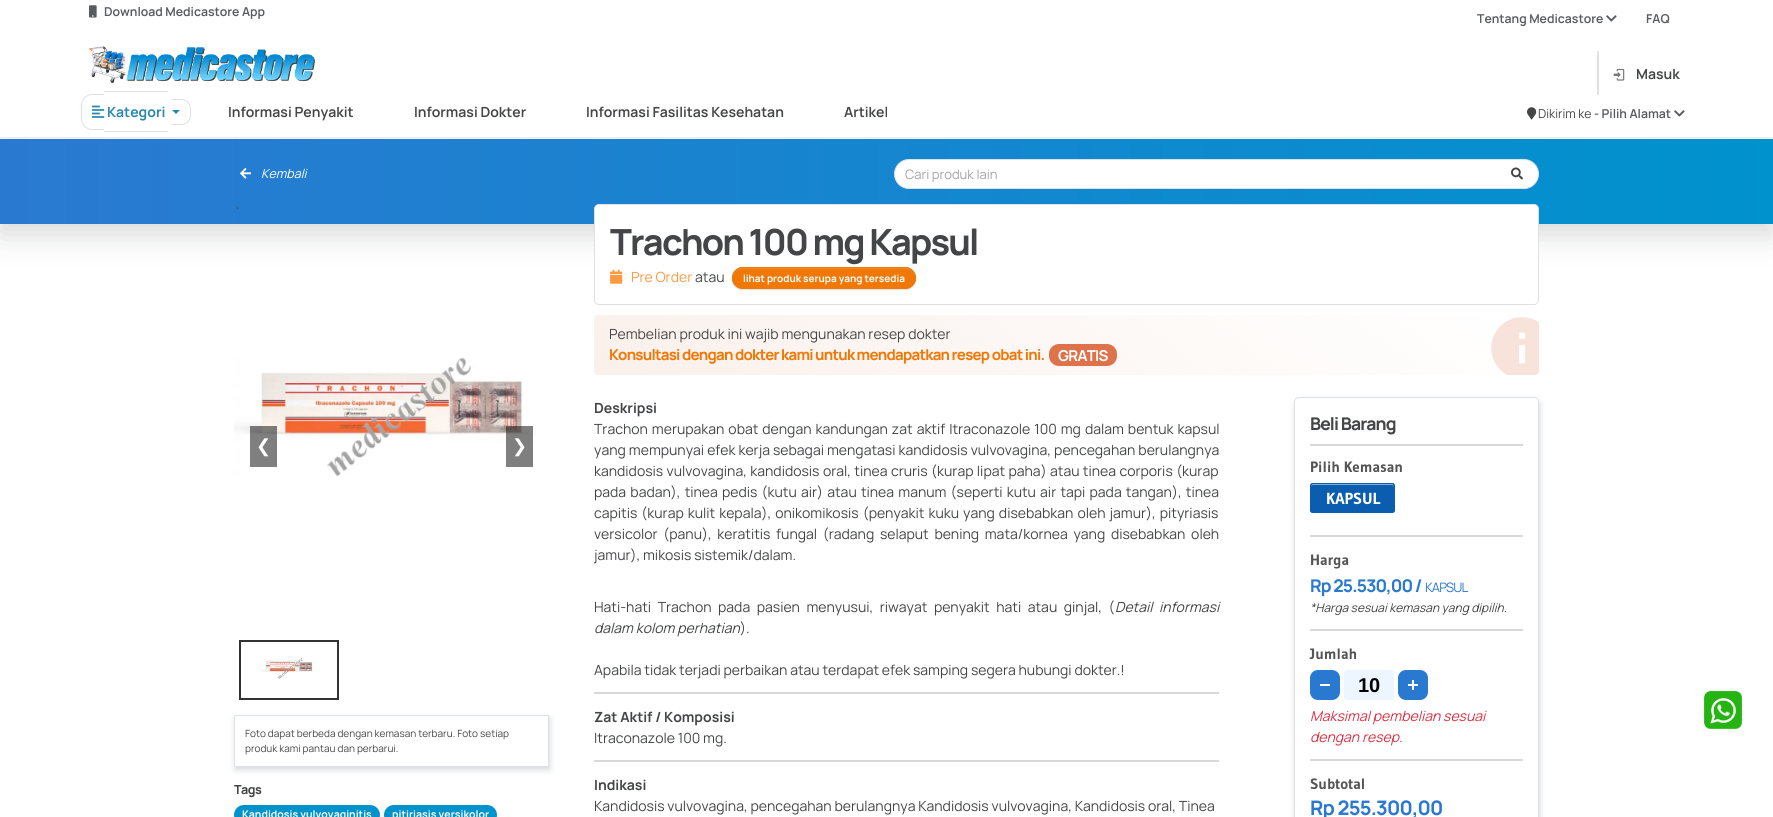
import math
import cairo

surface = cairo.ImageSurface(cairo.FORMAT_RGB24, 1773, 817)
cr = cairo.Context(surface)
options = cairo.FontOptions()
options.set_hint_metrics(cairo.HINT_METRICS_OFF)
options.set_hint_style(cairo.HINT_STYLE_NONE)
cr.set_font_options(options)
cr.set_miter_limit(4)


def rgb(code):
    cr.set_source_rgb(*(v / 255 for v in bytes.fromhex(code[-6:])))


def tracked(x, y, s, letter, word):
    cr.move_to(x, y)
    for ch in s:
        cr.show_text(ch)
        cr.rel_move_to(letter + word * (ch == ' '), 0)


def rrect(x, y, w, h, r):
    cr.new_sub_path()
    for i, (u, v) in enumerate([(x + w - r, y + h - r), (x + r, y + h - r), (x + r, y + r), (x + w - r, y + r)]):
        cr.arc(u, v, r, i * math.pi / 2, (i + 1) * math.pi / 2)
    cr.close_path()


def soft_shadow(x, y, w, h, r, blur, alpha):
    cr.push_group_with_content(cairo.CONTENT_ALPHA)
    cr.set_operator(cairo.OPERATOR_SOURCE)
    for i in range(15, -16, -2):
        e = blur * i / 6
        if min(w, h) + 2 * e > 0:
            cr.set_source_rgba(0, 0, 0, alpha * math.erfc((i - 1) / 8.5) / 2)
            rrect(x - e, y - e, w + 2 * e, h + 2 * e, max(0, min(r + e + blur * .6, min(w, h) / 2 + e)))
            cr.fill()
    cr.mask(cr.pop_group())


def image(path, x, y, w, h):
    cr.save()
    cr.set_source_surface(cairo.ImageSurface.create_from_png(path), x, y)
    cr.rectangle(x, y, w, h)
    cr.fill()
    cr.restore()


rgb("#ffffff")
cr.paint()
image("img/1.png", 89, 5, 8, 13)
image("img/2.png", 1606, 15, 11, 7)
rgb("#212529")
soft_shadow(0, 149, 1773, 85, 0, 15, 0.18)
gradient = cairo.LinearGradient(0, 182, 1773, 181)
gradient.add_color_stop_rgba(0, 0.165, 0.475, 0.82, 1)
gradient.add_color_stop_rgba(1, 0, 0.573, 0.804, 1)
cr.set_source(gradient)
cr.rectangle(0, 139, 1773, 85)
cr.fill()
rgb("#212529")
soft_shadow(0, 39, 1773, 99, 0, 1, 0.07)
rgb("#ffffff")
cr.rectangle(0, 38, 1773, 99)
cr.fill()
image("img/3.png", 89, 46, 226, 37)
rgb("#dee2e6")
cr.set_fill_rule(cairo.FILL_RULE_EVEN_ODD)
cr.new_path()
cr.move_to(92.5, 94)
cr.line_to(104, 94)
cr.line_to(104, 130)
cr.line_to(92.5, 130)
cr.curve_to(86, 130, 81, 125, 81, 118.5)
cr.line_to(81, 105.5)
cr.curve_to(81, 99, 86, 94, 92.5, 94)
cr.close_path()
cr.move_to(92.5, 95)
cr.line_to(104, 95)
cr.line_to(104, 129)
cr.line_to(92.5, 129)
cr.curve_to(86.5, 129, 82, 124.5, 82, 118.5)
cr.line_to(82, 105.5)
cr.curve_to(82, 99.5, 86.5, 95, 92.5, 95)
cr.close_path()
cr.fill()
cr.rectangle(104, 91, 64, 1)
cr.fill()
cr.rectangle(104, 131, 64, 1)
cr.fill()
cr.new_path()
cr.move_to(172, 99)
cr.line_to(181.5, 99)
cr.curve_to(186.5, 99, 191, 103.5, 191, 108.5)
cr.line_to(191, 115.5)
cr.curve_to(191, 120.5, 186.5, 125, 181.5, 125)
cr.line_to(172, 125)
cr.close_path()
cr.move_to(172, 100)
cr.line_to(181.5, 100)
cr.curve_to(186, 100, 190, 104, 190, 108.5)
cr.line_to(190, 115.5)
cr.curve_to(190, 120, 186, 124, 181.5, 124)
cr.line_to(172, 124)
cr.close_path()
cr.fill()
image("img/4.png", 92, 105, 13, 13)
rgb("#2a87af")
cr.set_fill_rule(cairo.FILL_RULE_WINDING)
cr.new_path()
cr.move_to(172, 110)
cr.line_to(180, 110)
cr.line_to(176, 114)
cr.close_path()
cr.fill()
rgb("#dee2e6")
cr.rectangle(1597, 51, 2, 44)
cr.fill()
image("img/5.png", 1613, 68, 12, 13)
image("img/6.png", 1527, 107, 10, 13)
image("img/2.png", 1674, 110, 11, 7)
image("img/7.png", 240, 168, 11, 11)
rgb("#ffffff")
rrect(894.5, 159.5, 644, 29, 14.5)
cr.fill_preserve()
rgb("#dee2e6")
cr.set_line_width(1)
cr.stroke()
image("img/8.png", 1511, 167, 12, 13)
image("img/9.png", 234, 357, 302, 120)
cr.set_source_rgba(0, 0, 0, 0.5)
cr.rectangle(250, 426, 27, 41)
cr.fill()
cr.rectangle(506, 426, 27, 41)
cr.fill()
cr.rectangle(240, 641, 98, 58)
rgb("#333333")
cr.set_line_width(2)
cr.stroke()
image("img/10.png", 261, 658, 54, 21)
cr.save()
cr.set_fill_rule(cairo.FILL_RULE_EVEN_ODD)
cr.new_path()
cr.move_to(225, 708)
cr.line_to(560, 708)
cr.line_to(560, 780)
cr.line_to(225, 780)
cr.close_path()
cr.move_to(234, 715)
cr.line_to(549, 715)
cr.line_to(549, 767)
cr.line_to(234, 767)
cr.close_path()
cr.clip()
rgb("#334455")
soft_shadow(235, 718, 315, 52, 0, 3, 0.2)
cr.restore()
cr.rectangle(234.5, 715.5, 314, 51)
rgb("#dee2e6")
cr.set_line_width(1)
cr.stroke()
rgb("#0092cb")
rrect(234, 805, 146, 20, 10)
cr.fill()
rrect(384, 805, 113, 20, 10)
cr.fill()
rgb("#ffffff")
rrect(594.5, 204.5, 944, 100, 4.5)
cr.fill_preserve()
rgb("#dee2e6")
cr.stroke()
image("img/11.png", 610, 269, 13, 15)
rgb("#000000")
soft_shadow(732, 268, 184, 22, 11, 0.5, 0.12)
rgb("#f07807")
rrect(732, 267, 184, 22, 11)
cr.fill()
cr.set_source_rgba(1, 1, 1, 0.12)
cr.new_path()
cr.move_to(743, 269)
cr.line_to(905, 269)
cr.curve_to(911, 269, 915, 273, 915, 278)
cr.curve_to(916, 261, 883, 268, 878, 268)
cr.line_to(770, 268)
cr.curve_to(765, 268, 732, 261, 733, 278)
cr.curve_to(733, 273, 737, 269, 743, 269)
cr.close_path()
cr.fill()
rrect(732.5, 267.5, 183, 21, 10.5)
rgb("#f07807")
cr.stroke()
image("img/12.png", 594, 315, 945, 60)
rgb("#de724a")
rrect(1049, 344, 68, 22, 10)
cr.fill()
rgb("#d8d9d8")
cr.rectangle(594, 692, 625, 2)
cr.fill()
cr.rectangle(594, 760, 625, 2)
cr.fill()
rgb("#334455")
soft_shadow(1295, 400, 245, 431, 5, 3, 0.2)
rgb("#ffffff")
rrect(1294.5, 397.5, 244, 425, 4.5)
cr.fill_preserve()
rgb("#dee2e6")
cr.stroke()
rgb("#d8d9d8")
cr.rectangle(1310, 444, 213, 2)
cr.fill()
rgb("#0b5eaf")
rrect(1310, 483, 85, 30, 3)
cr.fill()
rgb("#85afd7")
cr.new_path()
cr.move_to(1313, 485)
cr.line_to(1392, 485)
cr.curve_to(1393, 485, 1394, 486, 1394, 487)
cr.curve_to(1394, 480, 1382, 484, 1379, 484)
cr.line_to(1326, 484)
cr.curve_to(1323, 484, 1311, 480, 1311, 487)
cr.curve_to(1311, 486, 1312, 485, 1313, 485)
cr.close_path()
cr.fill()
rrect(1310.5, 483.5, 84, 29, 2.5)
rgb("#0b5eaf")
cr.stroke()
rgb("#d8d9d8")
cr.rectangle(1310, 535, 213, 2)
cr.fill()
cr.rectangle(1310, 629, 213, 2)
cr.fill()
rgb("#2a79d1")
rrect(1310, 670, 30, 30, 8)
cr.fill()
rgb("#ffffff")
cr.rectangle(1320, 684, 10, 2)
cr.fill()
rgb("#edf6ff")
rrect(1344, 670, 50, 30, 3)
cr.fill()
rgb("#2a79d1")
rrect(1398, 670, 30, 30, 8)
cr.fill()
for x, y, w, h, color in [
    (1408, 684, 10, 2, "#ffffff"),
    (1412, 680, 2, 10, "#ffffff"),
    (1310, 759, 213, 2, "#d8d9d8"),
]:
    rgb(color)
    cr.rectangle(x, y, w, h)
    cr.fill()
image("img/13.png", 1704, 690, 38, 39)
cr.select_font_face("Manrope SemiBold")
cr.set_font_size(12.25)
rgb("#595c5f")
for x, y, s in [
    (104, 16, "Download Medicastore App"),
    (1477, 23, "Tentang Medicastore"),
    (1646, 23, "FAQ"),
]:
    cr.move_to(x, y)
    cr.show_text(s)
cr.select_font_face("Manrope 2", cairo.FONT_SLANT_NORMAL, cairo.FONT_WEIGHT_BOLD)
cr.set_font_size(14)
rgb("#2a87af")
cr.move_to(107, 117)
cr.show_text("Kategori")
cr.select_font_face("Manrope SemiBold")
rgb("#444546")
for x, y, s in [
    (228, 117, "Informasi Penyakit"),
    (414, 117, "Informasi Dokter"),
    (586, 117, "Informasi Fasilitas Kesehatan"),
    (844, 117, "Artikel"),
    (1636, 79, "Masuk"),
]:
    cr.move_to(x, y)
    cr.show_text(s)
cr.select_font_face("Manrope")
cr.set_font_size(12.25)
cr.move_to(1538, 118)
cr.show_text("Dikirim ke")
cr.select_font_face("Manrope SemiBold")
rgb("#595c5f")
cr.move_to(1594, 118)
cr.show_text("- Pilih Alamat")
cr.select_font_face("Manrope", cairo.FONT_SLANT_ITALIC)
cr.set_font_size(12.5)
rgb("#ffffff")
cr.move_to(261, 178)
cr.show_text("Kembali")
cr.select_font_face("Manrope")
cr.set_font_size(13)
rgb("#a4a4a4")
cr.move_to(905, 179)
cr.show_text("Cari produk lain")
cr.set_font_size(14)
rgb("#444546")
cr.move_to(234, 220)
cr.show_text("`")
cr.select_font_face("DejaVu Sans")
cr.set_font_size(18)
rgb("#ffffff")
cr.move_to(256, 452)
cr.show_text("❮")
cr.move_to(512, 452)
cr.show_text("❯")
cr.select_font_face("Manrope")
cr.set_font_size(10)
rgb("#444546")
cr.move_to(245, 737)
cr.show_text("Foto dapat berbeda dengan kemasan terbaru. Foto setiap")
cr.move_to(245, 752)
cr.show_text("produk kami pantau dan perbarui.")
cr.select_font_face("Manrope", cairo.FONT_SLANT_NORMAL, cairo.FONT_WEIGHT_BOLD)
cr.set_font_size(12.5)
tracked(234, 794, "Tags", -0.5, 0)
cr.select_font_face("Manrope 2", cairo.FONT_SLANT_NORMAL, cairo.FONT_WEIGHT_BOLD)
cr.set_font_size(10.5)
rgb("#ffffff")
cr.move_to(242, 818)
cr.show_text("Kandidosis vulvovaginitis")
cr.move_to(392, 818)
cr.show_text("pitiriasis versikolor")
cr.select_font_face("Manrope", cairo.FONT_SLANT_NORMAL, cairo.FONT_WEIGHT_BOLD)
cr.set_font_size(36)
rgb("#444546")
tracked(610, 255, "Trachon 100 mg Kapsul", -1.8, 0)
cr.select_font_face("Manrope")
cr.set_font_size(14)
rgb("#ff9a44")
cr.move_to(631, 282)
cr.show_text("Pre Order")
rgb("#444546")
cr.move_to(695, 282)
cr.show_text("atau")
cr.select_font_face("Manrope 2", cairo.FONT_SLANT_NORMAL, cairo.FONT_WEIGHT_BOLD)
cr.set_font_size(10)
rgb("#ffffff")
cr.move_to(743, 282)
cr.show_text("lihat produk serupa yang tersedia")
cr.select_font_face("Manrope")
cr.set_font_size(14)
rgb("#444546")
cr.move_to(609, 339)
cr.show_text("Pembelian produk ini wajib mengunakan resep dokter")
cr.select_font_face("Manrope", cairo.FONT_SLANT_NORMAL, cairo.FONT_WEIGHT_BOLD)
cr.set_font_size(15)
rgb("#f07807")
tracked(609, 360, "Konsultasi dengan dokter kami untuk mendapatkan resep obat ini.", -0.75, 0)
cr.select_font_face("Manrope 2", cairo.FONT_SLANT_NORMAL, cairo.FONT_WEIGHT_BOLD)
rgb("#ffffff")
tracked(1058, 361, "GRATIS", -0.75, 0)
cr.set_font_size(14)
rgb("#444546")
cr.move_to(594, 413)
cr.show_text("Deskripsi")
cr.select_font_face("Manrope")
tracked(594, 434, "Trachon merupakan obat dengan kandungan zat aktif Itraconazole 100 mg dalam bentuk kapsul", 0, 1.2)
tracked(594, 455, "yang mempunyai efek kerja sebagai mengatasi kandidosis vulvovagina, pencegahan berulangnya", 0, 0.25)
tracked(594, 476, "kandidosis vulvovagina, kandidosis oral, tinea cruris (kurap lipat paha) atau tinea corporis (kurap", 0, 0.6)
tracked(594, 497, "pada badan), tinea pedis (kutu air) atau tinea manum (seperti kutu air tapi pada tangan), tinea", 0, 1.4)
tracked(594, 518, "capitis (kurap kulit kepala), onikomikosis (penyakit kuku yang disebabkan oleh jamur), pityriasis", 0, 1.25)
tracked(594, 539, "versicolor (panu), keratitis fungal (radang selaput bening mata/kornea yang disebabkan oleh", 0, 2.9)
cr.move_to(594, 560)
cr.show_text("jamur), mikosis sistemik/dalam.")
tracked(594, 612, "Hati-hati Trachon pada pasien menyusui, riwayat penyakit hati atau ginjal, (", 0, 3.75)
cr.select_font_face("Manrope", cairo.FONT_SLANT_ITALIC)
tracked(1115, 612, "Detail informasi", 0, 3.75)
cr.move_to(594, 633)
cr.show_text("dalam kolom perhatian")
cr.select_font_face("Manrope")
cr.move_to(740, 633)
cr.show_text(").")
cr.move_to(594, 675)
cr.show_text("Apabila tidak terjadi perbaikan atau terdapat efek samping segera hubungi dokter.!")
cr.select_font_face("Manrope 2", cairo.FONT_SLANT_NORMAL, cairo.FONT_WEIGHT_BOLD)
cr.move_to(594, 722)
cr.show_text("Zat Aktif / Komposisi")
cr.select_font_face("Manrope")
cr.move_to(594, 743)
cr.show_text("Itraconazole 100 mg.")
cr.select_font_face("Manrope 2", cairo.FONT_SLANT_NORMAL, cairo.FONT_WEIGHT_BOLD)
cr.move_to(594, 790)
cr.show_text("Indikasi")
cr.select_font_face("Manrope")
cr.move_to(594, 811)
cr.show_text("Kandidosis vulvovagina, pencegahan berulangnya Kandidosis vulvovagina, Kandidosis oral, Tinea")
cr.select_font_face("Manrope", cairo.FONT_SLANT_NORMAL, cairo.FONT_WEIGHT_BOLD)
cr.set_font_size(17.5)
tracked(1310, 430, "Beli Barang", -0.9, 0)
cr.select_font_face("Gudea", cairo.FONT_SLANT_NORMAL, cairo.FONT_WEIGHT_BOLD)
cr.set_font_size(15)
rgb("#555555")
cr.move_to(1310, 472)
cr.show_text("Pilih Kemasan")
cr.set_font_size(16)
rgb("#ffffff")
cr.move_to(1326, 504)
cr.show_text("KAPSUL")
cr.set_font_size(15)
rgb("#555555")
cr.move_to(1310, 565)
cr.show_text("Harga")
cr.select_font_face("Manrope", cairo.FONT_SLANT_NORMAL, cairo.FONT_WEIGHT_BOLD)
cr.set_font_size(17.5)
rgb("#2a79d1")
tracked(1310, 592, "Rp 25.530,00 /", -0.9, 0)
cr.select_font_face("Manrope")
cr.set_font_size(13)
tracked(1425, 592, "KAPSUL", -0.9, 0)
cr.select_font_face("Manrope", cairo.FONT_SLANT_ITALIC)
cr.set_font_size(12)
rgb("#444546")
cr.move_to(1310, 612)
cr.show_text("*Harga sesuai kemasan yang dipilih.")
cr.select_font_face("Gudea", cairo.FONT_SLANT_NORMAL, cairo.FONT_WEIGHT_BOLD)
cr.set_font_size(15)
rgb("#555555")
cr.move_to(1310, 659)
cr.show_text("Jumlah")
cr.select_font_face("Liberation Sans", cairo.FONT_SLANT_NORMAL, cairo.FONT_WEIGHT_BOLD)
cr.set_font_size(20)
rgb("#000000")
cr.move_to(1358, 692)
cr.show_text("10")
cr.select_font_face("Manrope", cairo.FONT_SLANT_ITALIC)
cr.set_font_size(14)
rgb("#dc3545")
cr.move_to(1310, 721)
cr.show_text("Maksimal pembelian sesuai")
cr.move_to(1310, 742)
cr.show_text("dengan resep.")
cr.select_font_face("Gudea", cairo.FONT_SLANT_NORMAL, cairo.FONT_WEIGHT_BOLD)
cr.set_font_size(15)
rgb("#555555")
cr.move_to(1310, 789)
cr.show_text("Subtotal")
cr.select_font_face("Manrope", cairo.FONT_SLANT_NORMAL, cairo.FONT_WEIGHT_BOLD)
cr.set_font_size(20)
rgb("#2a79d1")
tracked(1310, 815, "Rp 255.300,00", -0.75, 0)
surface.write_to_png("page.png")
